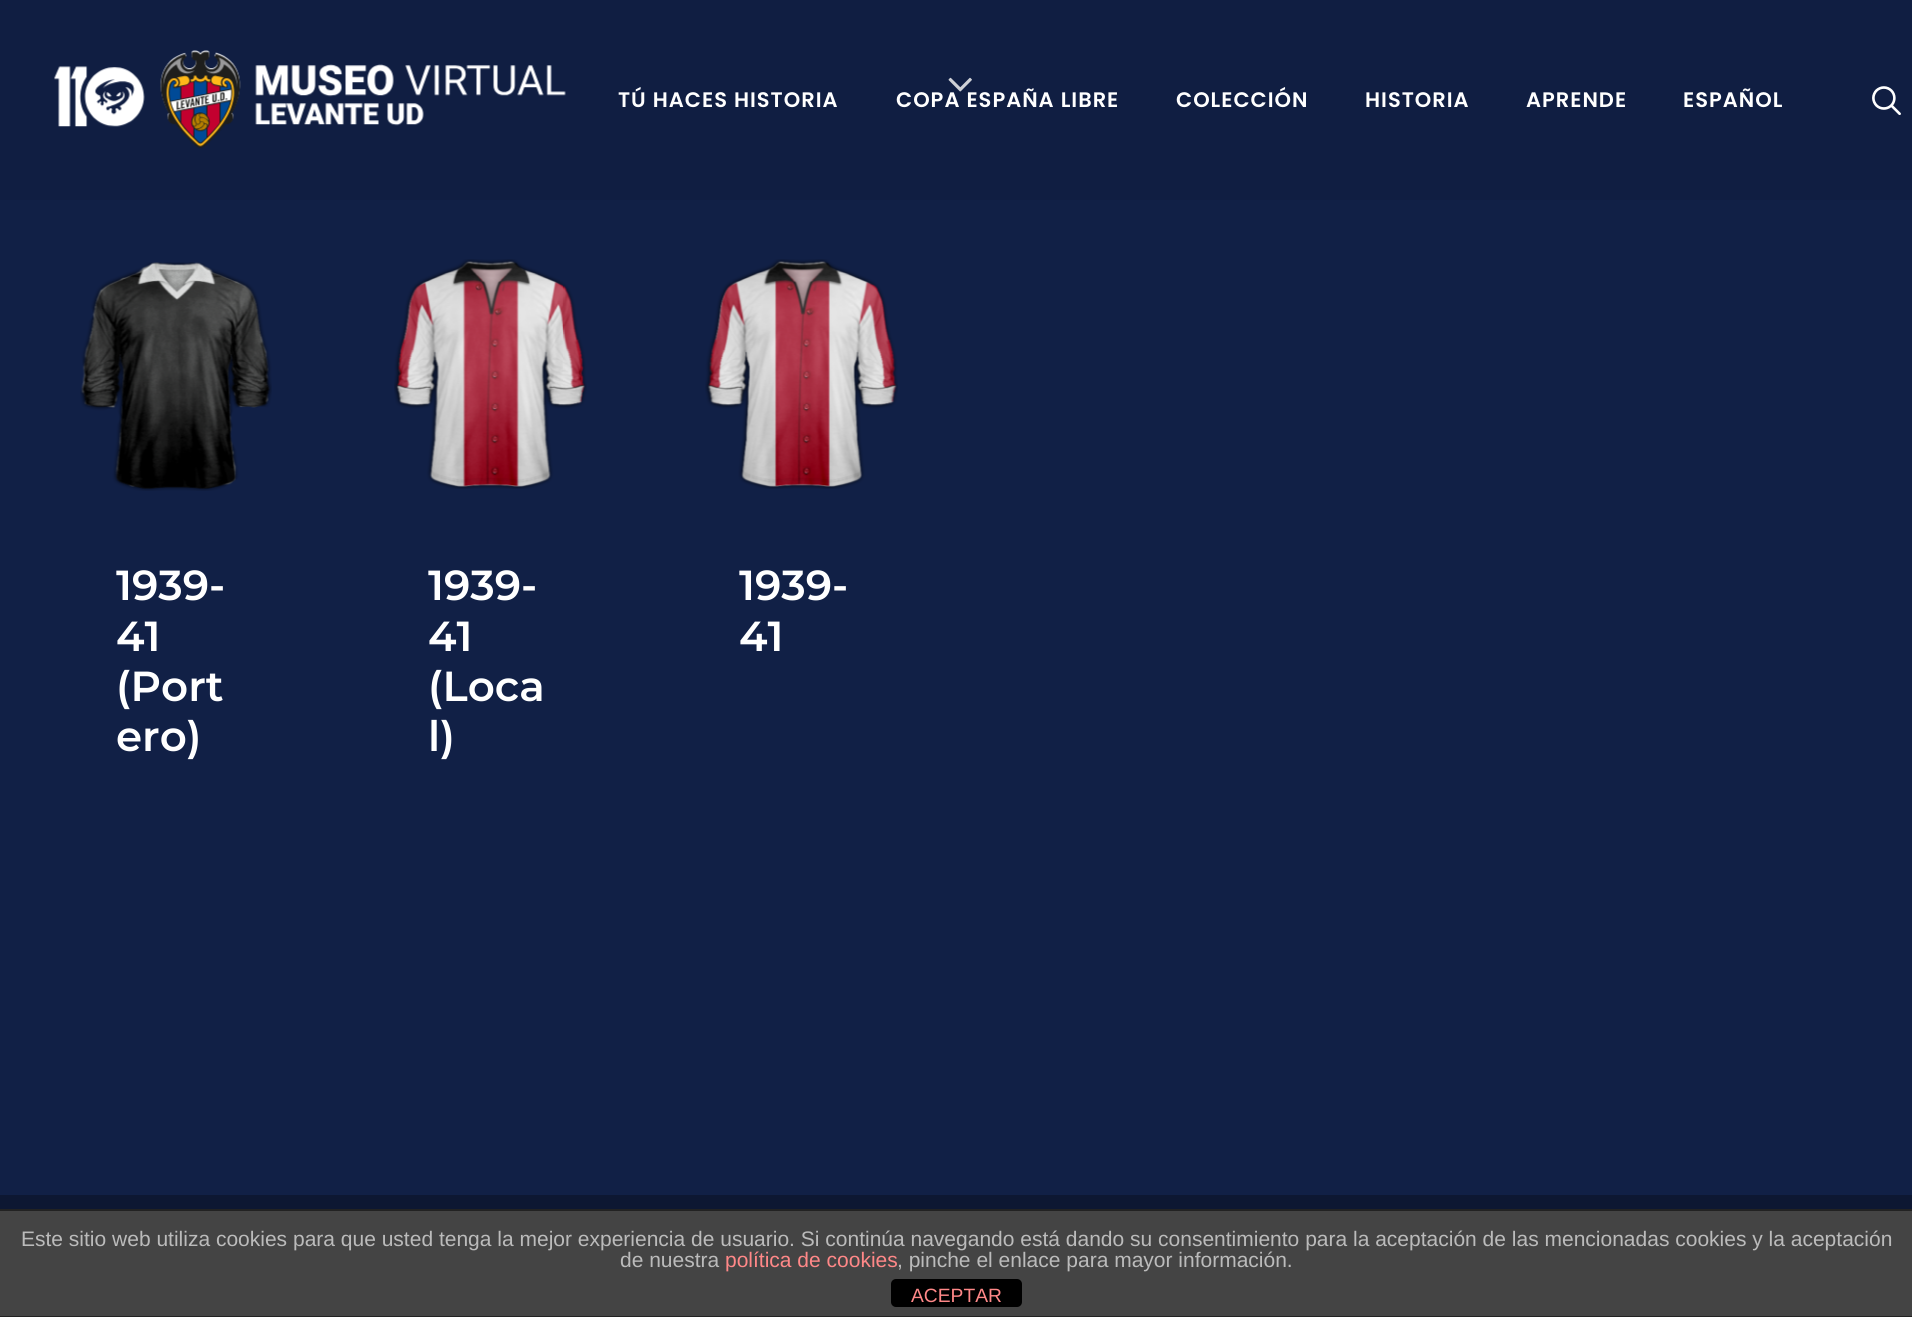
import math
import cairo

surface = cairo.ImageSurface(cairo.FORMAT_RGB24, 1912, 1317)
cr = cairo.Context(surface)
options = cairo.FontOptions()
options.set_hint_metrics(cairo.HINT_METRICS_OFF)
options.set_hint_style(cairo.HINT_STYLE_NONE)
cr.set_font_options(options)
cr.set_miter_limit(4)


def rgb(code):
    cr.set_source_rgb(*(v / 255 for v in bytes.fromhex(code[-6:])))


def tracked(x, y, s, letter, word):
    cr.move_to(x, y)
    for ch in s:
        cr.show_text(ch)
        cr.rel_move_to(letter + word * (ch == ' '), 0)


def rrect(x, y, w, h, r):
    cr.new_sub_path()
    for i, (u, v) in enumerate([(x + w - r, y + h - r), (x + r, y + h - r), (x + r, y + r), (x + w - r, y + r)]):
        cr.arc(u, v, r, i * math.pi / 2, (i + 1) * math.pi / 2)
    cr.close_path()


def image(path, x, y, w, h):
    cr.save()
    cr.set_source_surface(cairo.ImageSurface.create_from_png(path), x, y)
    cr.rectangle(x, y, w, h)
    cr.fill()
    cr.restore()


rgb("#112046")
cr.paint()
image("img/3.png", 948, 77, 24, 15)
cr.set_source_rgba(0.051, 0.09, 0.196, 0.2)
cr.rectangle(0, 0, 1912, 200)
cr.fill()
image("img/1.png", 54, 50, 512, 99)
image("img/2.png", 1872, 86, 29, 29)
image("img/4.png", 80, 262, 192, 229)
image("img/5.png", 394, 259, 193, 230)
image("img/6.png", 705, 259, 193, 230)
for x, y, w, h, color in [
    (0, 1195, 1912, 14, "#0d1732"),
    (0, 1211, 1912, 105, "#444444"),
    (0, 1209, 1912, 2, "#222222"),
    (0, 1316, 1912, 1, "#222222"),
]:
    rgb(color)
    cr.rectangle(x, y, w, h)
    cr.fill()
rgb("#000000")
rrect(891, 1279, 131, 28, 5)
cr.fill()
cr.select_font_face("Poppins SemiBold")
cr.set_font_size(21)
rgb("#ffffff")
for x, y, s in [
    (618, 107, "TÚ HACES HISTORIA"),
    (896, 107, "COPA ESPAÑA LIBRE"),
    (1176, 107, "COLECCIÓN"),
    (1365, 107, "HISTORIA"),
    (1526, 107, "APRENDE"),
    (1683, 107, "ESPAÑOL"),
]:
    tracked(x, y, s, 1, 0)
cr.select_font_face("Montserrat SemiBold")
cr.set_font_size(42)
for x, y, s in [
    (116, 600, "1939-"),
    (116, 651, "41"),
    (116, 701, "(Port"),
    (116, 751, "ero)"),
    (428, 600, "1939-"),
    (428, 651, "41"),
    (428, 701, "(Loca"),
    (428, 751, "l)"),
    (739, 600, "1939-"),
    (739, 651, "41"),
]:
    cr.move_to(x, y)
    cr.show_text(s)
cr.select_font_face("Liberation Sans")
cr.set_font_size(21)
rgb("#bbbbbb")
cr.move_to(21, 1246)
cr.show_text("Este sitio web utiliza cookies para que usted tenga la mejor experiencia de usuario. Si continúa navegando está dando su consentimiento para la aceptación de las mencionadas cookies y la aceptación")
cr.move_to(620, 1267)
cr.show_text("de nuestra")
rgb("#ff8888")
cr.move_to(725, 1267)
cr.show_text("política de cookies")
rgb("#bbbbbb")
cr.move_to(897, 1267)
cr.show_text(", pinche el enlace para mayor información.")
cr.set_font_size(19.25)
rgb("#ff8888")
cr.move_to(911, 1302)
cr.show_text("ACEPTAR")
surface.write_to_png("page.png")
